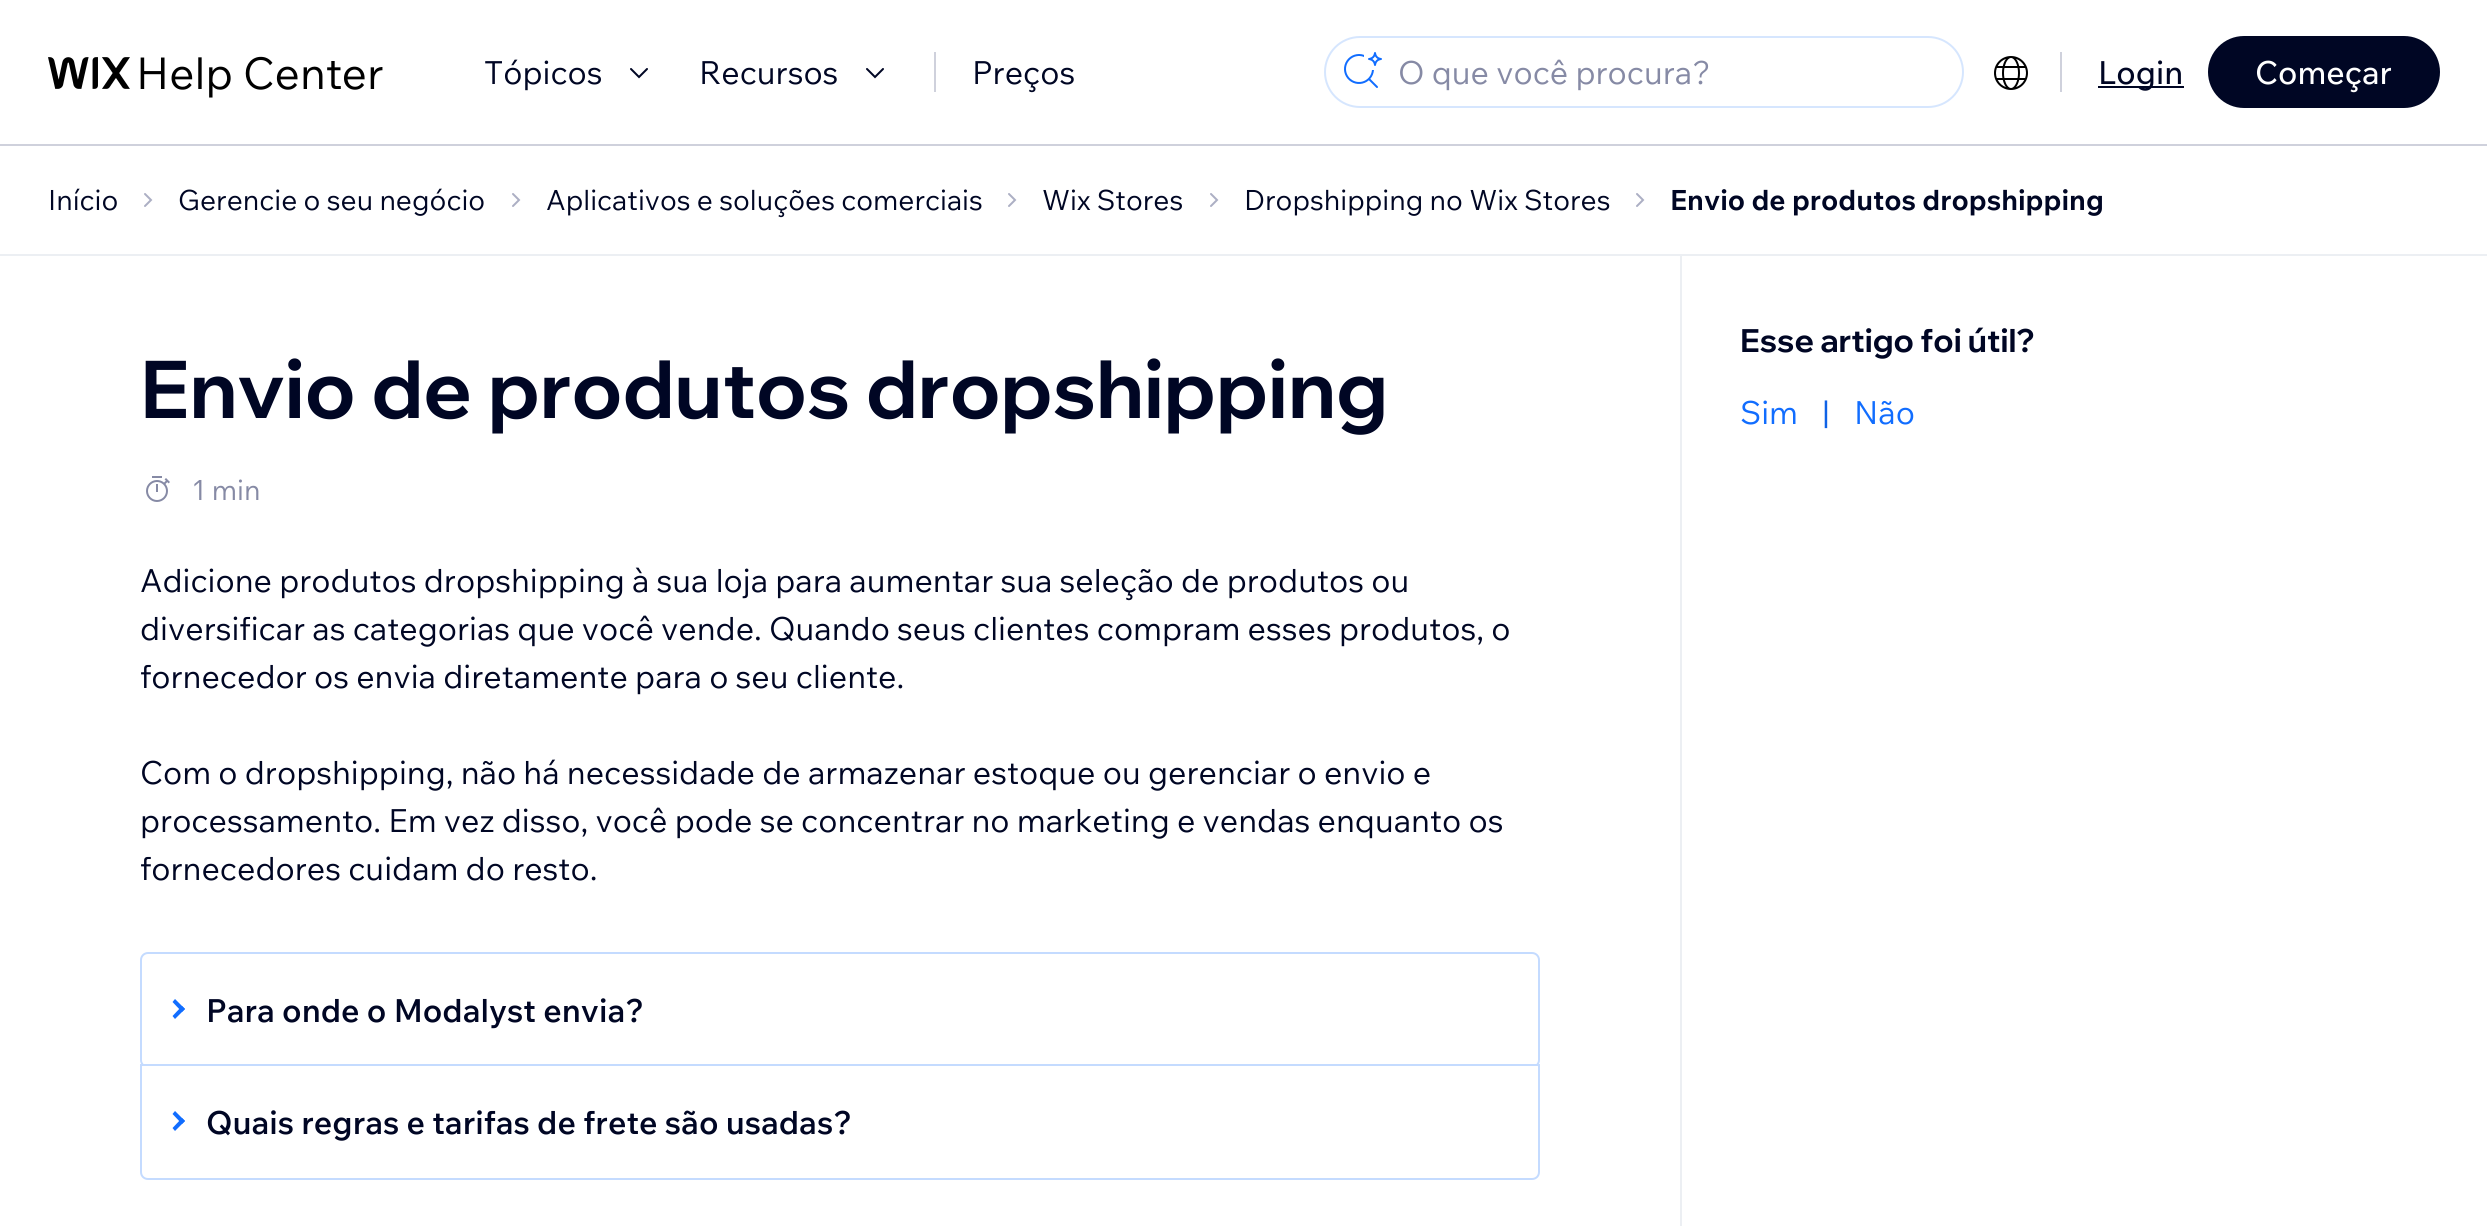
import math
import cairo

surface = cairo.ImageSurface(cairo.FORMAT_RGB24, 2487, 1226)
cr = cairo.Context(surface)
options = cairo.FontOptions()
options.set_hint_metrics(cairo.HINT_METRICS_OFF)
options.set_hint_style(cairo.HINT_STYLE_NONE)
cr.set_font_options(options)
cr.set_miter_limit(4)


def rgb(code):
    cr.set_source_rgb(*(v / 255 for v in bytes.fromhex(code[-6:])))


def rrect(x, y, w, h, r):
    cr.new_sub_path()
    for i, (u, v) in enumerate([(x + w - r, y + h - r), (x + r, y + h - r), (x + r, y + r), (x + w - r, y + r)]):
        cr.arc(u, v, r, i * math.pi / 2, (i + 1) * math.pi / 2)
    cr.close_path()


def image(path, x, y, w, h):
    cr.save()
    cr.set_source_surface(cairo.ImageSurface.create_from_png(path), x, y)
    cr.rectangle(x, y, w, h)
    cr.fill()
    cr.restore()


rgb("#ffffff")
cr.paint()
rgb("#cfd1dc")
cr.rectangle(0, 144, 2487, 2)
cr.fill()
image("img/1.png", 48, 56, 335, 42)
image("img/2.png", 630, 68, 18, 11)
image("img/2.png", 866, 68, 18, 11)
cr.rectangle(934, 52, 2, 40)
cr.fill()
rrect(1325, 37, 638, 70, 35)
rgb("#d6e6fe")
cr.stroke()
image("img/3.png", 1344, 52, 38, 36)
image("img/4.png", 1994, 56, 34, 34)
rgb("#cfd1dc")
cr.rectangle(2060, 52, 2, 40)
cr.fill()
rgb("#000624")
cr.rectangle(2098, 86, 86, 2)
cr.fill()
rrect(2208, 36, 232, 72, 36)
cr.fill()
rgb("#eceff3")
cr.rectangle(0, 254, 2487, 2)
cr.fill()
cr.new_path()
cr.move_to(145, 206)
cr.line_to(151, 200)
cr.line_to(145, 194)
rgb("#acafc4")
cr.set_line_cap(cairo.LINE_CAP_ROUND)
cr.stroke()
cr.new_path()
cr.move_to(513, 206)
cr.line_to(519, 200)
cr.line_to(513, 194)
cr.stroke()
cr.new_path()
cr.move_to(1009, 206)
cr.line_to(1015, 200)
cr.line_to(1009, 194)
cr.stroke()
cr.new_path()
cr.move_to(1211, 206)
cr.line_to(1217, 200)
cr.line_to(1211, 194)
cr.stroke()
cr.new_path()
cr.move_to(1637, 206)
cr.line_to(1643, 200)
cr.line_to(1637, 194)
cr.stroke()
image("img/5.png", 146, 476, 24, 26)
rrect(141, 953, 1398, 114, 7)
rgb("#c4dbff")
cr.set_line_cap(cairo.LINE_CAP_BUTT)
cr.stroke()
rgb("#116dff")
cr.new_path()
cr.move_to(175, 999)
cr.line_to(185, 1009)
cr.line_to(182, 1012)
cr.line_to(172.5, 1002)
cr.close_path()
cr.fill()
cr.new_path()
cr.move_to(182, 1006)
cr.line_to(185, 1009)
cr.line_to(175, 1019)
cr.line_to(172.5, 1016)
cr.close_path()
cr.fill()
rgb("#ffffff")
cr.rectangle(143, 1066, 1394, 2)
cr.fill()
cr.new_path()
cr.move_to(141, 1065)
cr.line_to(1539, 1065)
cr.line_to(1539, 1172)
cr.curve_to(1539, 1176, 1536, 1179, 1532, 1179)
cr.line_to(148, 1179)
cr.curve_to(144, 1179, 141, 1176, 141, 1172)
cr.close_path()
rgb("#c4dbff")
cr.stroke()
rgb("#116dff")
cr.new_path()
cr.move_to(175, 1111)
cr.line_to(185, 1121)
cr.line_to(182, 1124)
cr.line_to(172.5, 1114)
cr.close_path()
cr.fill()
cr.new_path()
cr.move_to(182, 1118)
cr.line_to(185, 1121)
cr.line_to(175, 1131)
cr.line_to(172.5, 1128)
cr.close_path()
cr.fill()
rgb("#eceff3")
cr.rectangle(1680, 256, 2, 970)
cr.fill()
cr.select_font_face("Wix Madefor Text")
cr.set_font_size(32)
rgb("#000624")
for x, y, s in [
    (484, 84, "Tópicos"),
    (699, 84, "Recursos"),
    (972, 84, "Preços"),
]:
    cr.move_to(x, y)
    cr.show_text(s)
rgb("#868aa5")
cr.move_to(1398, 84)
cr.show_text("O que você procura?")
cr.select_font_face("Wix Madefor Text Medium")
rgb("#000624")
cr.move_to(2098, 84)
cr.show_text("Login")
rgb("#ffffff")
cr.move_to(2255, 84)
cr.show_text("Começar")
cr.select_font_face("Wix Madefor Text")
cr.set_font_size(28)
rgb("#000624")
for x, y, s in [
    (48, 210, "Início"),
    (178, 210, "Gerencie o seu negócio"),
    (546, 210, "Aplicativos e soluções comerciais"),
    (1042, 210, "Wix Stores"),
    (1244, 210, "Dropshipping no Wix Stores"),
]:
    cr.move_to(x, y)
    cr.show_text(s)
cr.select_font_face("Wix Madefor Text", cairo.FONT_SLANT_NORMAL, cairo.FONT_WEIGHT_BOLD)
cr.move_to(1670, 210)
cr.show_text("Envio de produtos dropshipping")
cr.select_font_face("Wix Madefor Display", cairo.FONT_SLANT_NORMAL, cairo.FONT_WEIGHT_BOLD)
cr.set_font_size(80)
cr.move_to(140, 418)
cr.show_text("Envio de produtos dropshipping")
cr.select_font_face("Wix Madefor Text")
cr.set_font_size(28)
rgb("#868aa5")
cr.move_to(192, 500)
cr.show_text("1 min")
cr.set_font_size(32)
rgb("#000624")
for x, y, s in [
    (140, 592, "Adicione produtos dropshipping à sua loja para aumentar sua seleção de produtos ou"),
    (140, 640, "diversificar as categorias que você vende. Quando seus clientes compram esses produtos, o"),
    (140, 688, "fornecedor os envia diretamente para o seu cliente."),
    (140, 784, "Com o dropshipping, não há necessidade de armazenar estoque ou gerenciar o envio e"),
    (140, 832, "processamento. Em vez disso, você pode se concentrar no marketing e vendas enquanto os"),
    (140, 880, "fornecedores cuidam do resto."),
]:
    cr.move_to(x, y)
    cr.show_text(s)
cr.select_font_face("Wix Madefor Text SemiBold")
cr.move_to(206, 1022)
cr.show_text("Para onde o Modalyst envia?")
cr.move_to(206, 1134)
cr.show_text("Quais regras e tarifas de frete são usadas?")
cr.select_font_face("Wix Madefor Display", cairo.FONT_SLANT_NORMAL, cairo.FONT_WEIGHT_BOLD)
cr.move_to(1740, 352)
cr.show_text("Esse artigo foi útil?")
cr.select_font_face("Wix Madefor Text")
rgb("#116dff")
cr.move_to(1740, 424)
cr.show_text("Sim")
rgb("#0f62e6")
cr.move_to(1822, 424)
cr.show_text("|")
rgb("#116dff")
cr.move_to(1854, 424)
cr.show_text("Não")
surface.write_to_png("page.png")
